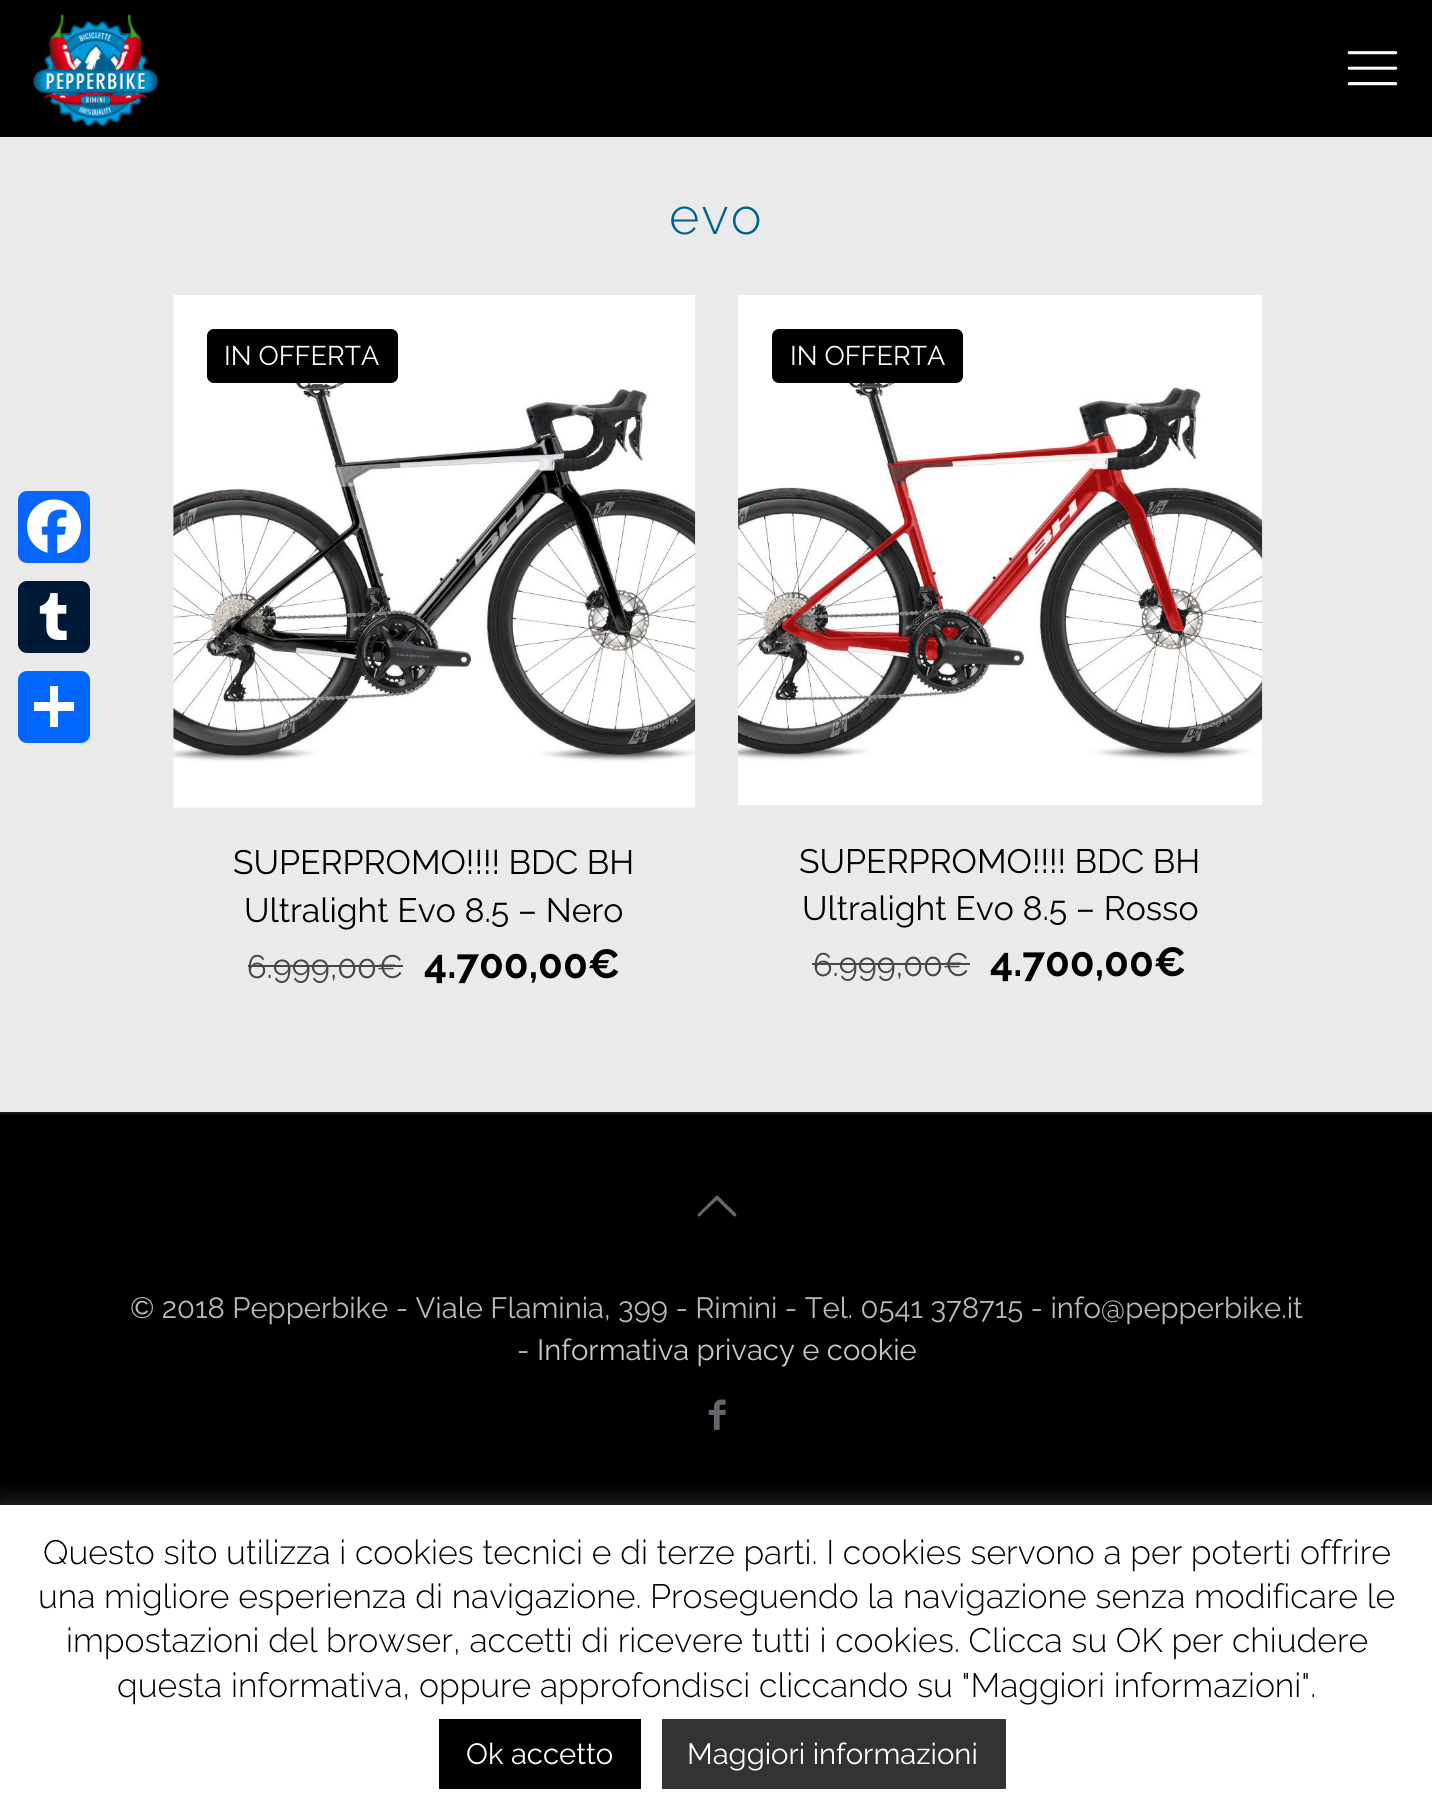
import math
import cairo

surface = cairo.ImageSurface(cairo.FORMAT_RGB24, 1432, 1815)
cr = cairo.Context(surface)
options = cairo.FontOptions()
options.set_hint_metrics(cairo.HINT_METRICS_OFF)
options.set_hint_style(cairo.HINT_STYLE_NONE)
cr.set_font_options(options)
cr.set_miter_limit(4)


def rgb(code):
    cr.set_source_rgb(*(v / 255 for v in bytes.fromhex(code[-6:])))


def tracked(x, y, s, letter, word):
    cr.move_to(x, y)
    for ch in s:
        cr.show_text(ch)
        cr.rel_move_to(letter + word * (ch == ' '), 0)


def rrect(x, y, w, h, r):
    cr.new_sub_path()
    for i, (u, v) in enumerate([(x + w - r, y + h - r), (x + r, y + h - r), (x + r, y + r), (x + w - r, y + r)]):
        cr.arc(u, v, r, i * math.pi / 2, (i + 1) * math.pi / 2)
    cr.close_path()


def soft_shadow(x, y, w, h, r, blur, alpha):
    cr.push_group_with_content(cairo.CONTENT_ALPHA)
    cr.set_operator(cairo.OPERATOR_SOURCE)
    for i in range(15, -16, -2):
        e = blur * i / 6
        if min(w, h) + 2 * e > 0:
            cr.set_source_rgba(0, 0, 0, alpha * math.erfc((i - 1) / 8.5) / 2)
            rrect(x - e, y - e, w + 2 * e, h + 2 * e, max(0, min(r + e + blur * .6, min(w, h) / 2 + e)))
            cr.fill()
    cr.mask(cr.pop_group())


def image(path, x, y, w, h):
    cr.save()
    cr.set_source_surface(cairo.ImageSurface.create_from_png(path), x, y)
    cr.rectangle(x, y, w, h)
    cr.fill()
    cr.restore()


rgb("#eaeaea")
cr.paint()
rgb("#0866ff")
rrect(18, 491, 72, 72, 9)
cr.fill()
image("img/1.png", 27, 499, 54, 55)
rgb("#001935")
rrect(18, 581, 72, 72, 9)
cr.fill()
image("img/2.png", 39, 593, 28, 47)
rgb("#0166ff")
rrect(18, 671, 72, 72, 9)
cr.fill()
for x, y, w, h, color in [
    (50, 686, 8, 41, "#ffffff"),
    (34, 702, 40, 9, "#ffffff"),
    (0, 0, 1432, 137, "#000000"),
]:
    rgb(color)
    cr.rectangle(x, y, w, h)
    cr.fill()
image("img/3.png", 33, 14, 125, 112)
image("img/4.png", 1347, 51, 51, 35)
image("img/5.png", 173, 295, 523, 513)
rrect(207, 329, 191, 54, 7)
cr.fill()
rgb("#464646")
cr.rectangle(248, 965, 155, 2)
cr.fill()
image("img/6.png", 738, 295, 525, 511)
rgb("#000000")
rrect(772, 329, 191, 54, 7)
cr.fill()
for x, y, w, h, color in [
    (812, 963, 158, 2, "#464646"),
    (0, 1114, 1432, 391, "#000000"),
    (0, 1112, 1432, 2, "#1a1a1a"),
]:
    rgb(color)
    cr.rectangle(x, y, w, h)
    cr.fill()
rgb("#65666c")
cr.new_path()
cr.move_to(733.5, 1216)
cr.line_to(717, 1200)
cr.line_to(703, 1213)
cr.curve_to(702, 1214, 699, 1218.5, 697.5, 1215.5)
cr.line_to(698, 1214)
cr.line_to(716.5, 1195.5)
cr.curve_to(718, 1195, 723, 1201, 724, 1202)
cr.line_to(733, 1210.5)
cr.curve_to(733, 1211, 739, 1215.5, 735, 1216.5)
cr.close_path()
cr.fill()
image("img/7.png", 708, 1399, 18, 31)
rgb("#acabab")
soft_shadow(0, 1503, 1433, 311, 0, 11, 0.3)
for x, y, w, h, color in [
    (0, 1505, 1432, 310, "#ffffff"),
    (439, 1719, 202, 70, "#000000"),
    (662, 1719, 344, 70, "#333333"),
]:
    rgb(color)
    cr.rectangle(x, y, w, h)
    cr.fill()
cr.select_font_face("Raleway Light")
cr.set_font_size(52)
rgb("#00628c")
tracked(669, 234, "evo", 2, 0)
cr.select_font_face("Raleway")
cr.set_font_size(27)
rgb("#ffffff")
cr.move_to(224, 365)
cr.show_text("IN OFFERTA")
cr.set_font_size(33.75)
rgb("#000000")
cr.move_to(233, 874)
cr.show_text("SUPERPROMO!!!! BDC BH")
cr.move_to(244, 922)
cr.show_text("Ultralight Evo 8.5 – Nero")
cr.set_font_size(32.5)
rgb("#464646")
cr.move_to(247, 978)
cr.show_text("6.999,00€")
cr.select_font_face("Raleway", cairo.FONT_SLANT_NORMAL, cairo.FONT_WEIGHT_BOLD)
cr.set_font_size(40.5)
rgb("#000000")
cr.move_to(424, 978)
cr.show_text("4.700,00€")
cr.select_font_face("Raleway")
cr.set_font_size(27)
rgb("#ffffff")
cr.move_to(790, 365)
cr.show_text("IN OFFERTA")
cr.set_font_size(33.75)
rgb("#000000")
cr.move_to(799, 873)
cr.show_text("SUPERPROMO!!!! BDC BH")
cr.move_to(802, 920)
cr.show_text("Ultralight Evo 8.5 – Rosso")
cr.set_font_size(32.5)
rgb("#464646")
cr.move_to(813, 976)
cr.show_text("6.999,00€")
cr.select_font_face("Raleway", cairo.FONT_SLANT_NORMAL, cairo.FONT_WEIGHT_BOLD)
cr.set_font_size(40.5)
rgb("#000000")
cr.move_to(990, 976)
cr.show_text("4.700,00€")
cr.select_font_face("Raleway")
cr.set_font_size(29.25)
rgb("#bbbbbb")
cr.move_to(130, 1318)
cr.show_text("© 2018 Pepperbike - Viale Flaminia, 399 - Rimini - Tel. 0541 378715 - info@pepperbike.it")
cr.move_to(517, 1360)
cr.show_text("-")
rgb("#c8c8c8")
cr.move_to(537, 1360)
cr.show_text("Informativa privacy e cookie")
cr.select_font_face("Raleway Light")
cr.set_font_size(33.75)
rgb("#000000")
for x, y, s in [
    (43, 1564, "Questo sito utilizza i cookies tecnici e di terze parti. I cookies servono a per poterti offrire"),
    (38, 1608, "una migliore esperienza di navigazione. Proseguendo la navigazione senza modificare le"),
    (66, 1652, "impostazioni del browser, accetti di ricevere tutti i cookies. Clicca su OK per chiudere"),
    (117, 1697, "questa informativa, oppure approfondisci cliccando su \"Maggiori informazioni\"."),
]:
    cr.move_to(x, y)
    cr.show_text(s)
cr.select_font_face("Raleway")
cr.set_font_size(29.25)
rgb("#ffffff")
cr.move_to(466, 1764)
cr.show_text("Ok accetto")
cr.move_to(687, 1764)
cr.show_text("Maggiori informazioni")
surface.write_to_png("page.png")
